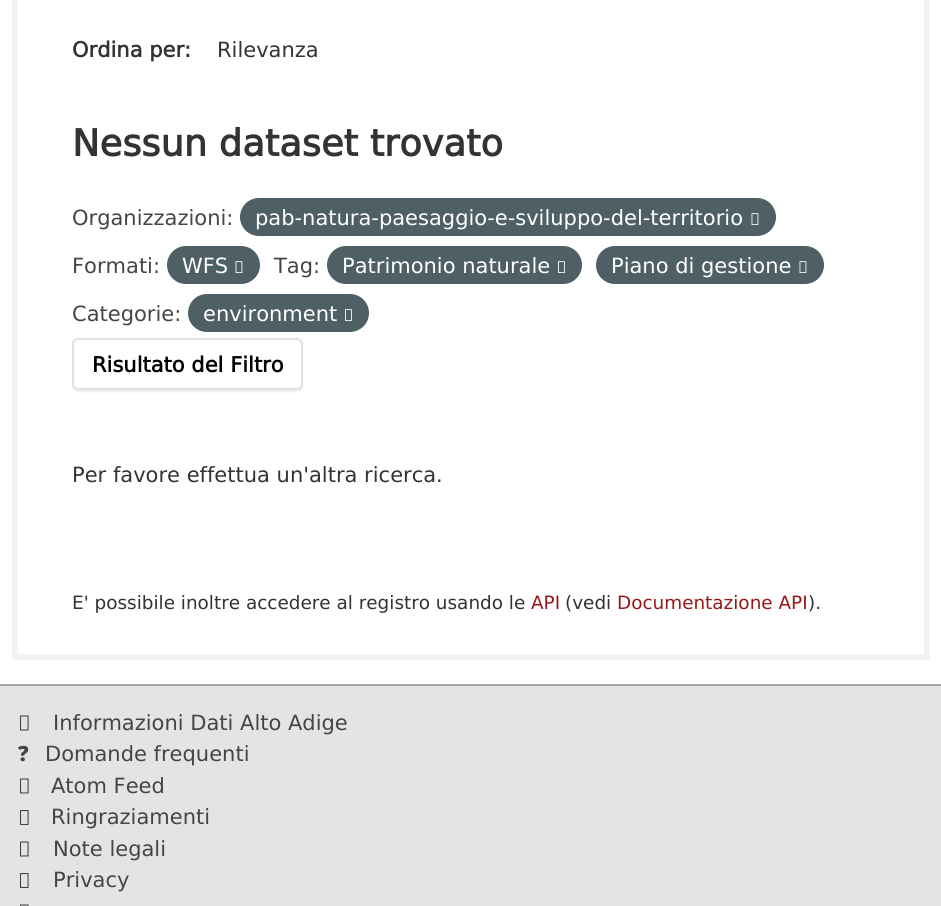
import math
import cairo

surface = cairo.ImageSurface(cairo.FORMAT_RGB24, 941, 906)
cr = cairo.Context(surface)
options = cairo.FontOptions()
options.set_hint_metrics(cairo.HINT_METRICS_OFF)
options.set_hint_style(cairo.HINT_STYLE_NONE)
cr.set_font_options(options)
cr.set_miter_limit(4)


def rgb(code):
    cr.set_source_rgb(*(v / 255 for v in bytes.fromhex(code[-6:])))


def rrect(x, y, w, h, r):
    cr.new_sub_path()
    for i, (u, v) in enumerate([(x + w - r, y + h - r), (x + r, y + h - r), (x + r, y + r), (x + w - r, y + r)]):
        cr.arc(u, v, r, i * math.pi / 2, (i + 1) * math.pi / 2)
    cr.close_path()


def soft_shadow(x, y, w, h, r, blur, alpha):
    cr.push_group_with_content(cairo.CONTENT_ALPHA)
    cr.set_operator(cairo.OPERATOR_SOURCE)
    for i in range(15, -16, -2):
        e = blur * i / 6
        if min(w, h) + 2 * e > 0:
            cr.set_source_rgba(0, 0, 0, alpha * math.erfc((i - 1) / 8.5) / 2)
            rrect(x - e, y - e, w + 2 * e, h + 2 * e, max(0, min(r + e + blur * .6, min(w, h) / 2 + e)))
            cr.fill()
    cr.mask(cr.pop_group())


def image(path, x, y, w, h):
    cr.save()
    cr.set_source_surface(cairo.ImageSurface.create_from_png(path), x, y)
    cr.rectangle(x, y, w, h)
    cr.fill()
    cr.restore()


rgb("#e4e4e5")
cr.paint()
rgb("#ffffff")
cr.rectangle(0, 0, 941, 684)
cr.fill()
cr.rectangle(15, -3, 912, 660)
rgb("#f2f2f2")
cr.set_line_width(6)
cr.stroke()
rgb("#4e5f65")
rrect(240, 198, 536, 38, 19)
cr.fill()
image("img/1.png", 751, 213, 8, 12)
rrect(167, 246, 93, 38, 19)
cr.fill()
image("img/1.png", 235, 261, 8, 12)
rrect(327, 246, 255, 38, 19)
cr.fill()
image("img/2.png", 558, 261, 7, 12)
rrect(596, 246, 228, 38, 19)
cr.fill()
image("img/1.png", 799, 261, 8, 12)
rrect(188, 294, 181, 38, 19)
cr.fill()
image("img/2.png", 345, 309, 7, 12)
rgb("#000000")
soft_shadow(72, 339, 231, 53, 6, 1, 0.07)
rgb("#ffffff")
rrect(73, 339, 229, 50, 5)
cr.fill_preserve()
rgb("#dee2e6")
cr.set_line_width(2)
cr.stroke()
rgb("#a4a5a5")
cr.rectangle(0, 684, 941, 2)
cr.fill()
image("img/3.png", 19, 715, 10, 16)
image("img/3.png", 19, 778, 10, 16)
image("img/4.png", 19, 810, 10, 15)
image("img/3.png", 19, 841, 10, 16)
image("img/4.png", 19, 873, 10, 15)
image("img/5.png", 19, 904, 10, 2)
cr.select_font_face("DejaVu Sans", cairo.FONT_SLANT_NORMAL, cairo.FONT_WEIGHT_BOLD)
cr.set_font_size(21)
rgb("#333333")
cr.move_to(72, 57)
cr.show_text("Ordina per:")
cr.select_font_face("DejaVu Sans")
cr.move_to(217, 57)
cr.show_text("Rilevanza")
cr.select_font_face("DejaVu Sans", cairo.FONT_SLANT_NORMAL, cairo.FONT_WEIGHT_BOLD)
cr.set_font_size(36.8)
cr.move_to(72, 156)
cr.show_text("Nessun dataset trovato")
cr.select_font_face("DejaVu Sans")
cr.set_font_size(21)
rgb("#454544")
cr.move_to(72, 225)
cr.show_text("Organizzazioni:")
rgb("#ffffff")
cr.move_to(255, 225)
cr.show_text("pab-natura-paesaggio-e-sviluppo-del-territorio")
rgb("#454544")
cr.move_to(72, 273)
cr.show_text("Formati:")
rgb("#ffffff")
cr.move_to(182, 273)
cr.show_text("WFS")
rgb("#454544")
cr.move_to(274, 273)
cr.show_text("Tag:")
rgb("#ffffff")
cr.move_to(342, 273)
cr.show_text("Patrimonio naturale")
cr.move_to(611, 273)
cr.show_text("Piano di gestione")
rgb("#454544")
cr.move_to(72, 321)
cr.show_text("Categorie:")
rgb("#ffffff")
cr.move_to(203, 321)
cr.show_text("environment")
cr.select_font_face("DejaVu Sans", cairo.FONT_SLANT_NORMAL, cairo.FONT_WEIGHT_BOLD)
rgb("#000000")
cr.move_to(92, 372)
cr.show_text("Risultato del Filtro")
cr.select_font_face("DejaVu Sans")
rgb("#333333")
cr.move_to(72, 482)
cr.show_text("Per favore effettua un'altra ricerca.")
cr.set_font_size(18.4)
cr.move_to(72, 609)
cr.show_text("E' possibile inoltre accedere al registro usando le")
rgb("#96191a")
cr.move_to(531, 609)
cr.show_text("API")
rgb("#333333")
cr.move_to(565, 609)
cr.show_text("(vedi")
rgb("#96191a")
cr.move_to(617, 609)
cr.show_text("Documentazione API")
rgb("#333333")
cr.move_to(808, 609)
cr.show_text(").")
cr.set_font_size(21)
rgb("#454544")
cr.move_to(53, 730)
cr.show_text("Informazioni Dati Alto Adige")
cr.select_font_face("Noto Sans Black")
cr.move_to(18, 761)
cr.show_text("?")
cr.select_font_face("DejaVu Sans")
for x, y, s in [
    (45, 761, "Domande frequenti"),
    (51, 793, "Atom Feed"),
    (51, 824, "Ringraziamenti"),
    (53, 856, "Note legali"),
    (53, 887, "Privacy"),
]:
    cr.move_to(x, y)
    cr.show_text(s)
surface.write_to_png("page.png")
